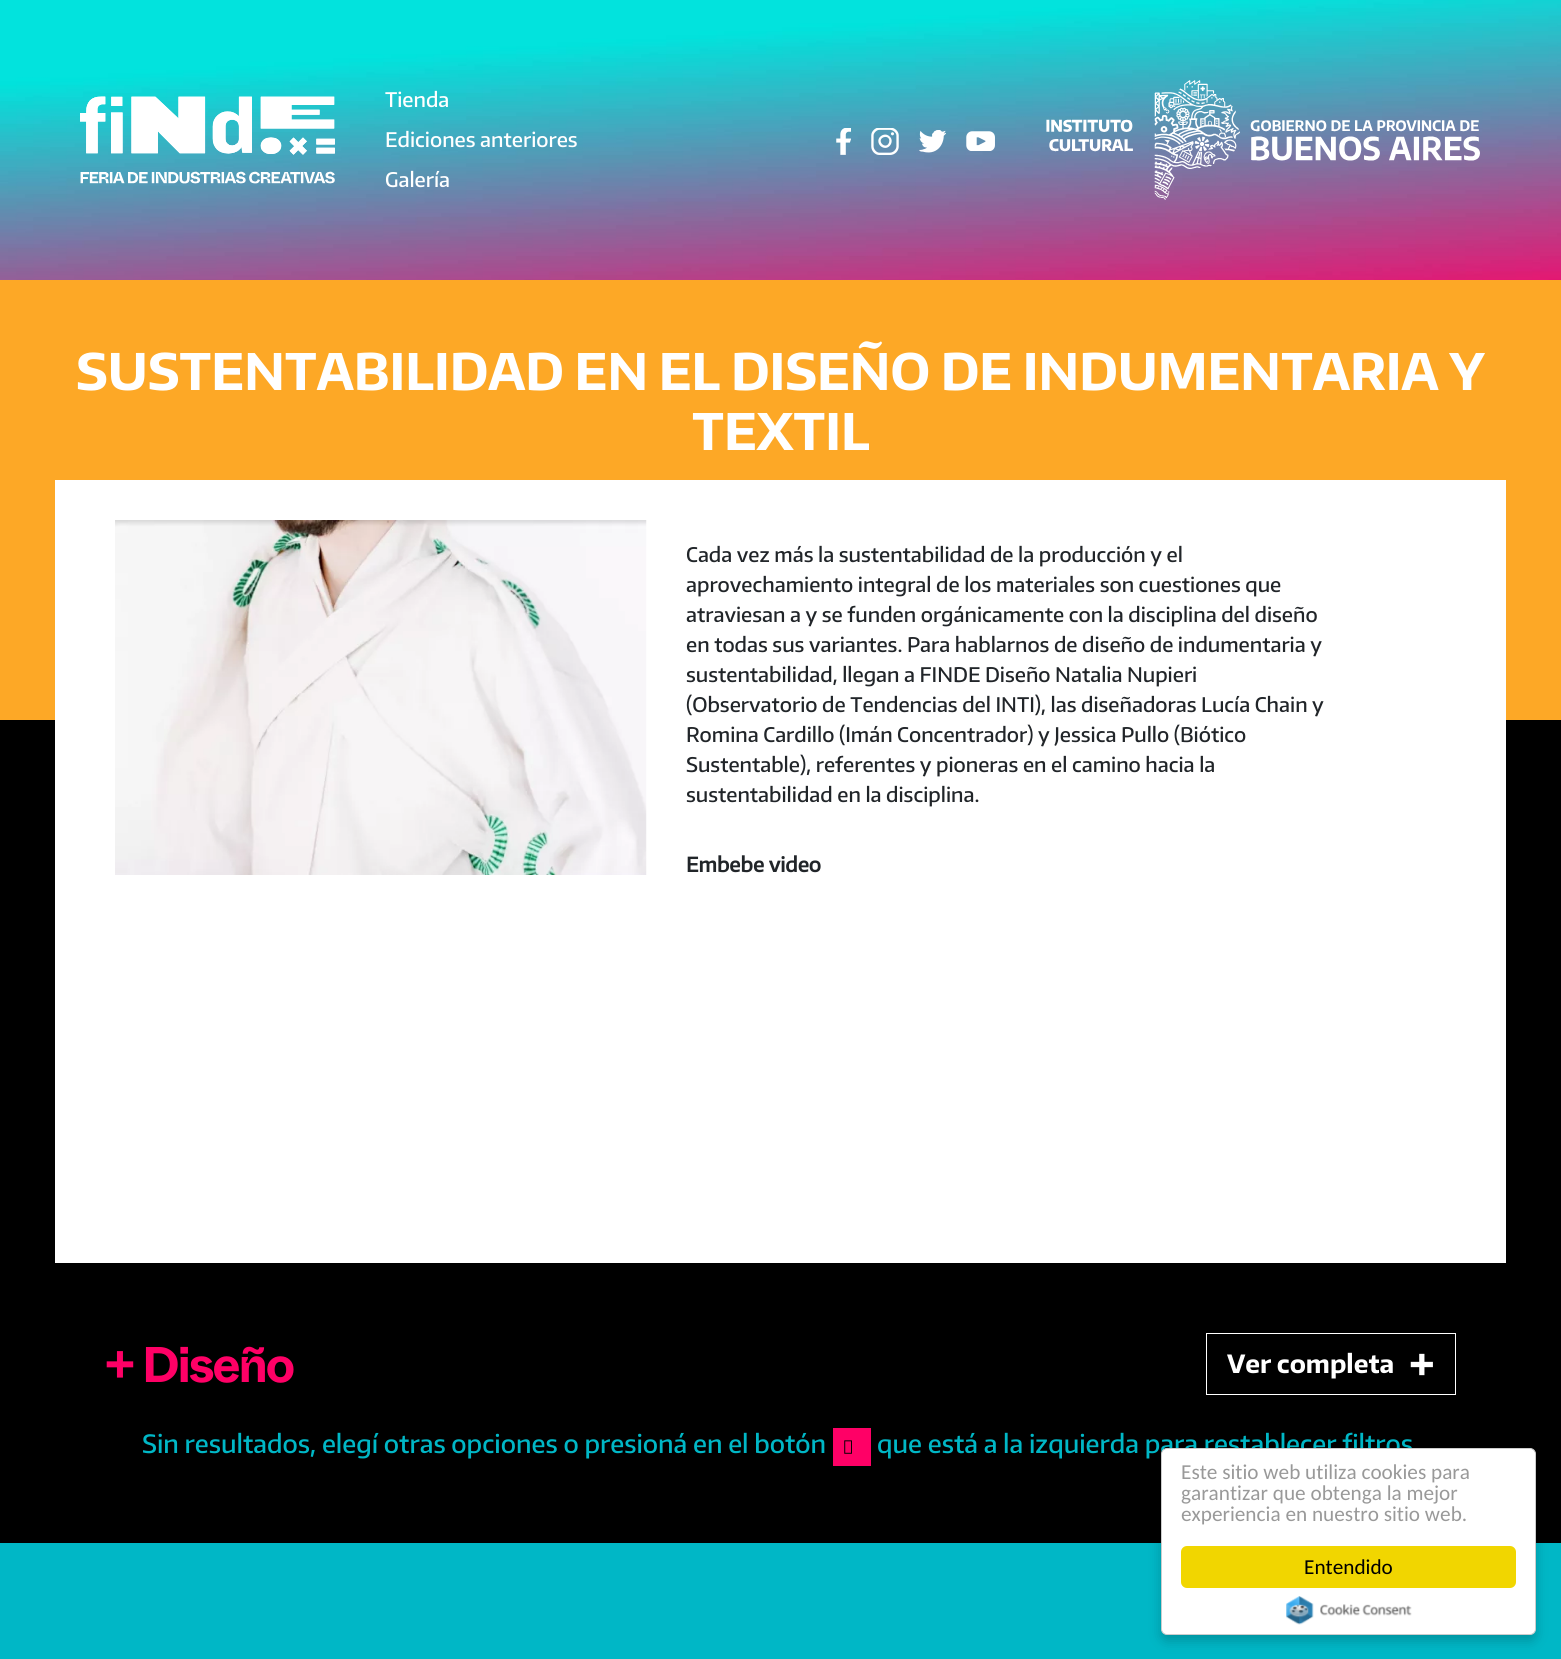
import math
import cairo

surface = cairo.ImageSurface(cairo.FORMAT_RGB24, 1561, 1659)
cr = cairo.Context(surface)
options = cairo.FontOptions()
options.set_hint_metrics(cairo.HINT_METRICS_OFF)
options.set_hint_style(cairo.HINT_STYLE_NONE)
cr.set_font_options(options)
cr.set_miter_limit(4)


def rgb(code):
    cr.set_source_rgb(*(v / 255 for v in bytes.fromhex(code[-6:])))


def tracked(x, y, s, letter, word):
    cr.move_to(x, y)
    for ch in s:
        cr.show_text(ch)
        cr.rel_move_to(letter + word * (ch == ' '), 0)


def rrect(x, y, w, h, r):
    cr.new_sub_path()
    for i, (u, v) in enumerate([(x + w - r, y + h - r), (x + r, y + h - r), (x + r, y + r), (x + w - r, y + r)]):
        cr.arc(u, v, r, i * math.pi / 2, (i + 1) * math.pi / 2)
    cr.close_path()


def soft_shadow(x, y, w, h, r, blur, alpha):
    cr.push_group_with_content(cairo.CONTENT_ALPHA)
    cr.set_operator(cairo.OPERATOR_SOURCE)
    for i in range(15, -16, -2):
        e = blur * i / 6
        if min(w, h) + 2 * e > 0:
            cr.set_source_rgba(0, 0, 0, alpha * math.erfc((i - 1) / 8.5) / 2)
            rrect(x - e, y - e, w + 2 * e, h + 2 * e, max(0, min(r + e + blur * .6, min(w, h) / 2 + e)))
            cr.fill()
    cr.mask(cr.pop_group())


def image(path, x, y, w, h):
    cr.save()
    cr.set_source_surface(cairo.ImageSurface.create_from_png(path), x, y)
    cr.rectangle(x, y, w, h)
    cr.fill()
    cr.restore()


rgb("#000000")
cr.paint()
image("img/1.png", 0, 0, 1561, 280)
image("img/2.png", 80, 96, 255, 88)
image("img/3.png", 836, 128, 15, 27)
image("img/4.png", 871, 128, 28, 27)
image("img/5.png", 919, 130, 27, 23)
image("img/6.png", 966, 131, 29, 20)
image("img/7.png", 1046, 80, 434, 120)
rgb("#fda826")
cr.rectangle(0, 280, 1561, 440)
cr.fill()
rgb("#ffffff")
cr.rectangle(55, 480, 1451, 783)
cr.fill()
image("img/8.png", 115, 520, 532, 355)
cr.rectangle(1206.5, 1333.5, 249, 61)
cr.set_line_width(1)
cr.stroke()
rgb("#ff0066")
cr.rectangle(833, 1428, 38, 38)
cr.fill()
image("img/9.png", 844, 1440, 8, 14)
rgb("#00b7c6")
cr.rectangle(0, 1543, 1561, 116)
cr.fill()
rgb("#000000")
soft_shadow(1161, 1454, 375, 187, 6, 6, 0.2)
cr.select_font_face("Encode Sans Medium")
cr.set_font_size(20)
rgb("#ffffff")
for x, y, s in [
    (385, 107, "Tienda"),
    (385, 147, "Ediciones anteriores"),
    (385, 187, "Galería"),
]:
    cr.move_to(x, y)
    cr.show_text(s)
cr.select_font_face("Encode Sans", cairo.FONT_SLANT_NORMAL, cairo.FONT_WEIGHT_BOLD)
cr.set_font_size(50)
cr.move_to(76, 390)
cr.show_text("SUSTENTABILIDAD EN EL DISEÑO DE INDUMENTARIA Y")
cr.move_to(692, 450)
cr.show_text("TEXTIL")
cr.select_font_face("Encode Sans Medium")
cr.set_font_size(20)
rgb("#212529")
for x, y, s in [
    (686, 562, "Cada vez más la sustentabilidad de la producción y el"),
    (686, 592, "aprovechamiento integral de los materiales son cuestiones que"),
    (686, 622, "atraviesan a y se funden orgánicamente con la disciplina del diseño"),
    (686, 652, "en todas sus variantes. Para hablarnos de diseño de indumentaria y"),
    (686, 682, "sustentabilidad, llegan a FINDE Diseño Natalia Nupieri"),
    (686, 712, "(Observatorio de Tendencias del INTI), las diseñadoras Lucía Chain y"),
    (686, 742, "Romina Cardillo (Imán Concentrador) y Jessica Pullo (Biótico"),
    (686, 772, "Sustentable), referentes y pioneras en el camino hacia la"),
    (686, 802, "sustentabilidad en la disciplina."),
]:
    cr.move_to(x, y)
    cr.show_text(s)
cr.select_font_face("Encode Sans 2", cairo.FONT_SLANT_NORMAL, cairo.FONT_WEIGHT_BOLD)
cr.move_to(686, 872)
cr.show_text("Embebe video")
cr.select_font_face("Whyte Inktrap", cairo.FONT_SLANT_NORMAL, cairo.FONT_WEIGHT_BOLD)
cr.set_font_size(50)
rgb("#ff0066")
tracked(105, 1382, "+ Diseño", -2.5, 0)
cr.select_font_face("Encode Sans", cairo.FONT_SLANT_NORMAL, cairo.FONT_WEIGHT_BOLD)
cr.set_font_size(25)
rgb("#ffffff")
cr.move_to(1227, 1373)
cr.show_text("Ver completa")
cr.set_font_size(50)
cr.move_to(1409, 1383)
cr.show_text("+")
cr.select_font_face("Encode Sans Medium")
cr.set_font_size(25)
rgb("#00b7c6")
cr.move_to(142, 1453)
cr.show_text("Sin resultados, elegí otras opciones o presioná en el botón")
cr.move_to(877, 1453)
cr.show_text("que está a la izquierda para restablecer filtros")
rgb("#ffffff")
rrect(1161.5, 1448.5, 374, 186, 5.5)
cr.fill_preserve()
rgb("#cccccc")
cr.stroke()
cr.select_font_face("Carlito")
cr.set_font_size(21.25)
rgb("#999999")
for x, y, s in [
    (1181, 1479, "Este sitio web utiliza cookies para"),
    (1181, 1500, "garantizar que obtenga la mejor"),
    (1181, 1521, "experiencia en nuestro sitio web."),
]:
    cr.move_to(x, y)
    cr.show_text(s)
rgb("#f1d600")
rrect(1181, 1546, 335, 42, 6)
cr.fill()
rgb("#000000")
cr.move_to(1304, 1574)
cr.show_text("Entendido")
image("img/10.png", 1286, 1596, 126, 29)
surface.write_to_png("page.png")
